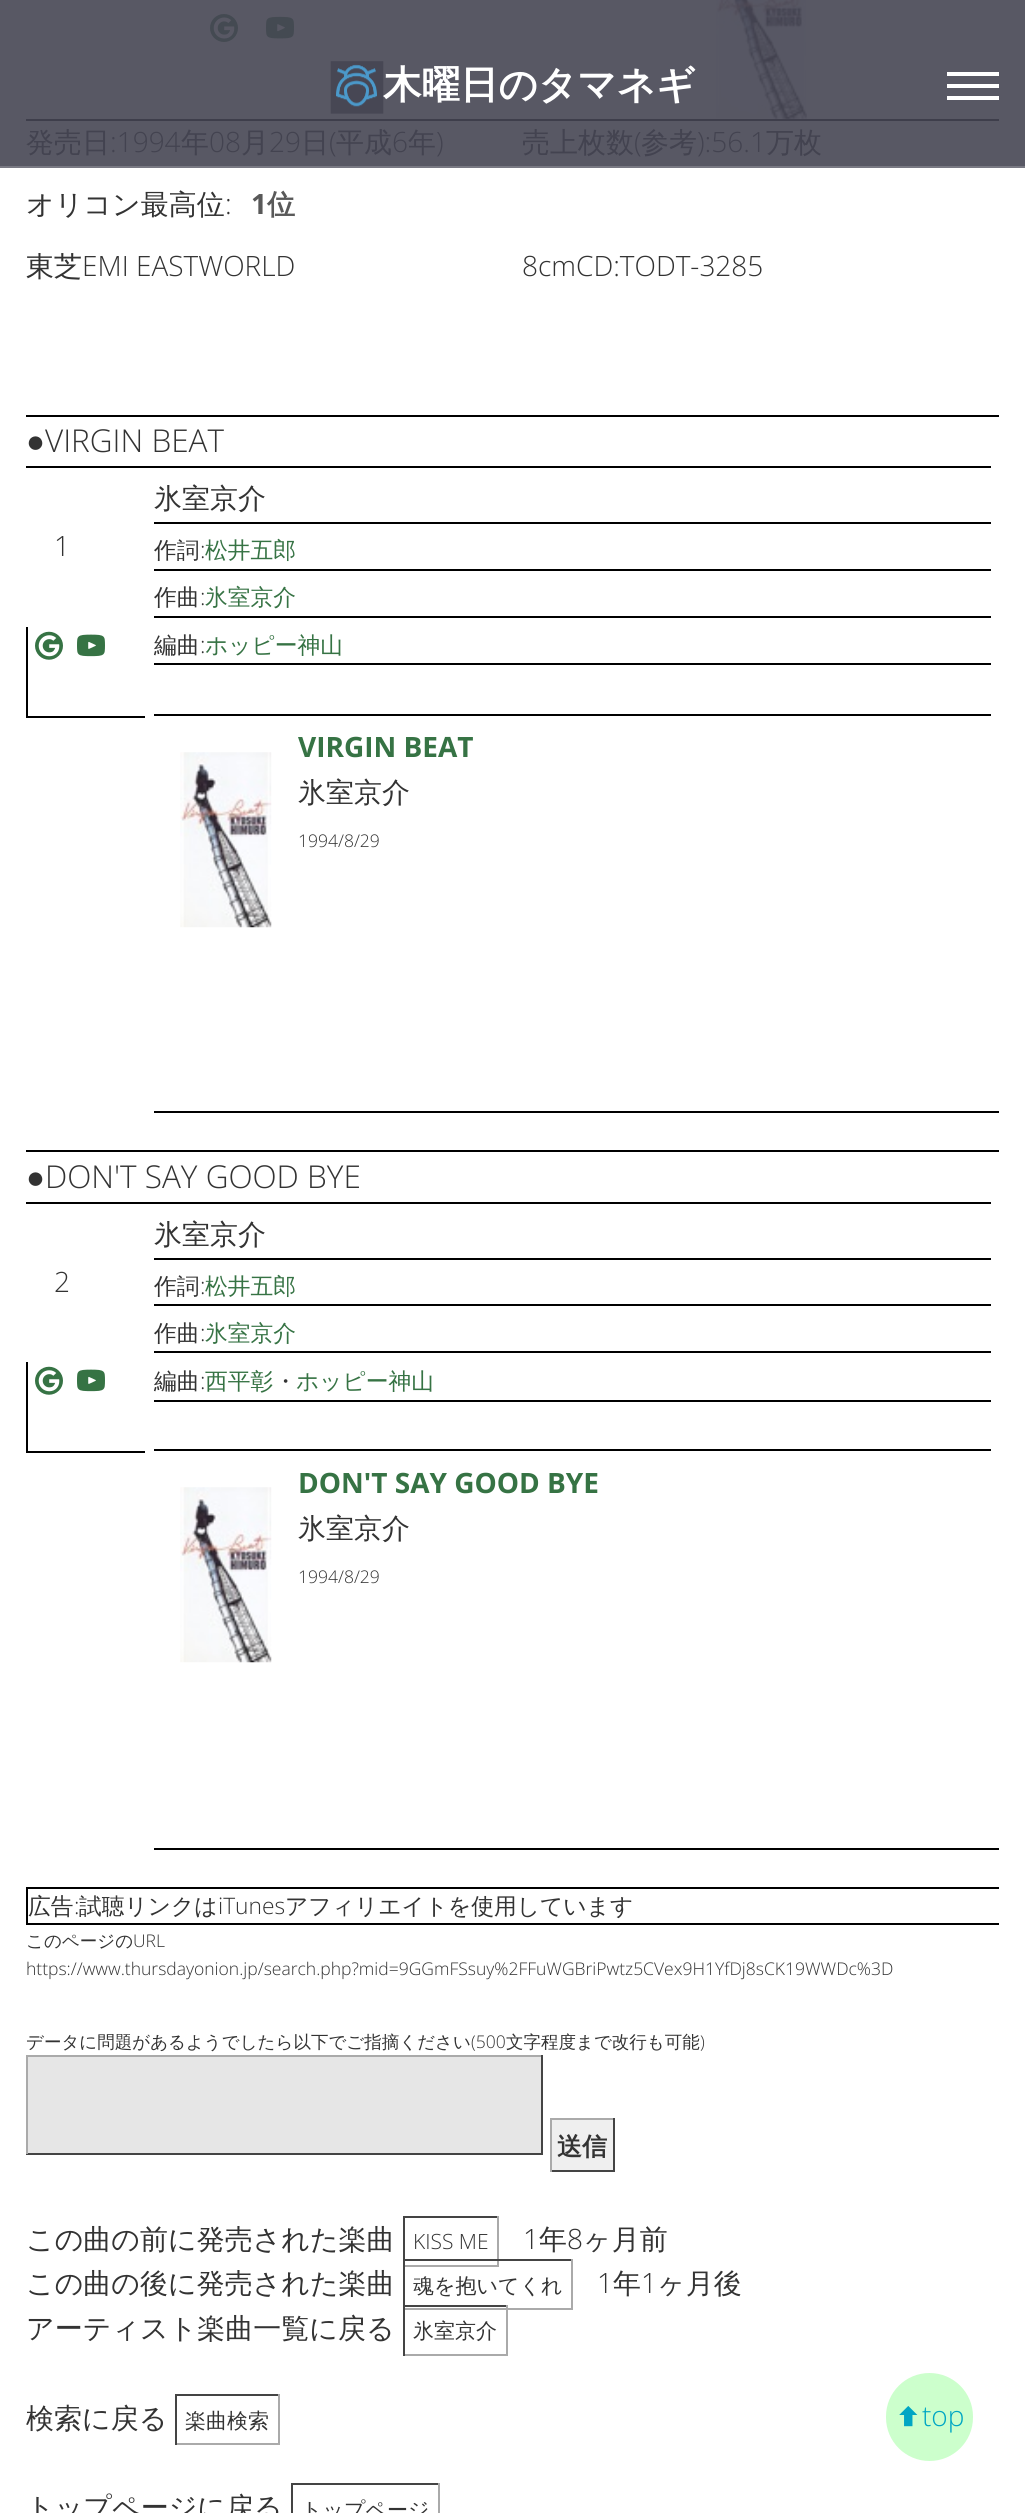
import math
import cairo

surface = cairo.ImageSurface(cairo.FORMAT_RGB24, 1025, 2513)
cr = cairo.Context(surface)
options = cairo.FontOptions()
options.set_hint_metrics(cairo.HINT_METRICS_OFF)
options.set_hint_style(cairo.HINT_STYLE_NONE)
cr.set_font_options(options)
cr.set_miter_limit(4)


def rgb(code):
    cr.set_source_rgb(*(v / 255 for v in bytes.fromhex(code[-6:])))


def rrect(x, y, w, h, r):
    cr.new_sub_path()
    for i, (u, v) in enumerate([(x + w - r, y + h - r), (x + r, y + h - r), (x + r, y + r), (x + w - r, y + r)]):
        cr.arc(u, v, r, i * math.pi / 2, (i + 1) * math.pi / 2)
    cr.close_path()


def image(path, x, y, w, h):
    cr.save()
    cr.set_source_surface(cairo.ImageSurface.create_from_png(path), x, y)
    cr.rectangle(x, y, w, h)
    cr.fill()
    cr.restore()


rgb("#ffffff")
cr.paint()
rgb("#585864")
cr.rectangle(0, 0, 1025, 166)
cr.fill()
rgb("#797983")
cr.rectangle(0, 166, 1025, 2)
cr.fill()
image("img/1.png", 330, 61, 54, 53)
for x, y, w, h, color in [
    (947, 84, 52, 4, "#ffffff"),
    (947, 72, 52, 4, "#ffffff"),
    (947, 96, 52, 4, "#ffffff"),
    (26, 119, 973, 2, "#3e3e4b"),
]:
    rgb(color)
    cr.rectangle(x, y, w, h)
    cr.fill()
image("img/2.png", 210, 14, 28, 28)
image("img/3.png", 266, 16, 28, 23)
image("img/4.png", 716, 0, 91, 119)
for x, y, w, h, color in [
    (26, 415, 973, 2, "#000000"),
    (26, 1150, 973, 2, "#000000"),
    (26, 466, 965, 2, "#000000"),
    (154, 522, 837, 2, "#000000"),
    (154, 569, 837, 2, "#000000"),
    (154, 616, 837, 2, "#000000"),
    (26, 716, 119, 2, "#000000"),
    (26, 627, 2, 91, "#000000"),
]:
    rgb(color)
    cr.rectangle(x, y, w, h)
    cr.fill()
image("img/5.png", 35, 631, 28, 29)
image("img/6.png", 77, 634, 28, 23)
cr.rectangle(154, 663, 837, 2)
cr.fill()
cr.rectangle(154, 714, 837, 2)
cr.fill()
image("img/7.png", 180, 752, 92, 176)
for x, y, w, h, color in [
    (154, 1111, 845, 2, "#000000"),
    (26, 1887, 973, 2, "#000000"),
    (26, 1202, 965, 2, "#000000"),
    (154, 1258, 837, 2, "#000000"),
    (154, 1304, 837, 2, "#000000"),
    (154, 1351, 837, 2, "#000000"),
    (26, 1451, 119, 2, "#000000"),
    (26, 1362, 2, 91, "#000000"),
]:
    rgb(color)
    cr.rectangle(x, y, w, h)
    cr.fill()
image("img/5.png", 35, 1366, 28, 29)
image("img/6.png", 77, 1369, 28, 23)
cr.rectangle(154, 1400, 837, 2)
cr.fill()
cr.rectangle(154, 1449, 837, 2)
cr.fill()
image("img/7.png", 180, 1487, 92, 176)
for x, y, w, h, color in [
    (154, 1848, 845, 2, "#000000"),
    (26, 1923, 973, 2, "#000000"),
    (26, 1888, 2, 37, "#000000"),
    (28, 2057, 513, 96, "#e6e6e6"),
    (26, 2055, 517, 2, "#aaaaaa"),
    (541, 2055, 2, 99, "#444444"),
    (26, 2153, 517, 2, "#444444"),
    (26, 2055, 2, 99, "#aaaaaa"),
    (552, 2120, 61, 50, "#efefef"),
    (550, 2118, 64, 2, "#aaaaaa"),
    (613, 2118, 2, 54, "#444444"),
    (550, 2170, 64, 2, "#444444"),
    (550, 2118, 2, 54, "#aaaaaa"),
    (403, 2216, 96, 2, "#444444"),
    (497, 2216, 2, 50, "#aaaaaa"),
    (403, 2265, 96, 2, "#aaaaaa"),
    (403, 2216, 2, 50, "#444444"),
    (403, 2259, 169, 2, "#444444"),
    (571, 2259, 2, 51, "#aaaaaa"),
    (403, 2308, 169, 2, "#aaaaaa"),
    (403, 2259, 2, 51, "#444444"),
    (403, 2305, 105, 2, "#444444"),
    (506, 2305, 2, 51, "#aaaaaa"),
    (403, 2354, 105, 2, "#aaaaaa"),
    (403, 2305, 2, 51, "#444444"),
    (175, 2394, 105, 2, "#444444"),
    (278, 2394, 2, 51, "#aaaaaa"),
    (175, 2443, 105, 2, "#aaaaaa"),
    (175, 2394, 2, 51, "#444444"),
    (291, 2483, 148, 2, "#444444"),
    (438, 2483, 2, 30, "#aaaaaa"),
    (291, 2483, 2, 30, "#444444"),
]:
    rgb(color)
    cr.rectangle(x, y, w, h)
    cr.fill()
rgb("#ccffcc")
rrect(886, 2373, 87, 88, 43.5)
cr.fill()
image("img/8.png", 899, 2406, 19, 21)
cr.select_font_face("WenQuanYi Zen Hei", cairo.FONT_SLANT_NORMAL, cairo.FONT_WEIGHT_BOLD)
cr.set_font_size(38.5)
rgb("#ffffff")
cr.move_to(383, 98)
cr.show_text("木曜日のタマネギ")
cr.select_font_face("WenQuanYi Zen Hei Medium")
cr.set_font_size(28)
rgb("#434350")
cr.move_to(26, 152)
cr.show_text("発売日")
cr.select_font_face("Open Sans Light")
cr.move_to(110, 152)
cr.show_text(":1994")
cr.select_font_face("WenQuanYi Zen Hei Medium")
cr.move_to(181, 152)
cr.show_text("年")
cr.select_font_face("Open Sans Light")
cr.move_to(209, 152)
cr.show_text("08")
cr.select_font_face("WenQuanYi Zen Hei Medium")
cr.move_to(241, 152)
cr.show_text("月")
cr.select_font_face("Open Sans Light")
cr.move_to(269, 152)
cr.show_text("29")
cr.select_font_face("WenQuanYi Zen Hei Medium")
cr.move_to(301, 152)
cr.show_text("日")
cr.select_font_face("Open Sans Light")
cr.move_to(329, 152)
cr.show_text("(")
cr.select_font_face("WenQuanYi Zen Hei Medium")
cr.move_to(336, 152)
cr.show_text("平成")
cr.select_font_face("Open Sans Light")
cr.move_to(392, 152)
cr.show_text("6")
cr.select_font_face("WenQuanYi Zen Hei Medium")
cr.move_to(408, 152)
cr.show_text("年")
cr.select_font_face("Open Sans Light")
cr.move_to(436, 152)
cr.show_text(")")
cr.select_font_face("WenQuanYi Zen Hei Medium")
cr.move_to(522, 152)
cr.show_text("売上枚数")
cr.select_font_face("Open Sans Light")
cr.move_to(634, 152)
cr.show_text("(")
cr.select_font_face("WenQuanYi Zen Hei Medium")
cr.move_to(641, 152)
cr.show_text("参考")
cr.select_font_face("Open Sans Light")
cr.move_to(697, 152)
cr.show_text("):56.1")
cr.select_font_face("WenQuanYi Zen Hei Medium")
cr.move_to(766, 152)
cr.show_text("万枚")
rgb("#333333")
cr.move_to(26, 214)
cr.show_text("オリコン最高位")
cr.select_font_face("Open Sans Light")
cr.move_to(225, 214)
cr.show_text(":")
cr.select_font_face("Open Sans", cairo.FONT_SLANT_NORMAL, cairo.FONT_WEIGHT_BOLD)
rgb("#595959")
cr.move_to(251, 214)
cr.show_text("1")
cr.select_font_face("WenQuanYi Zen Hei", cairo.FONT_SLANT_NORMAL, cairo.FONT_WEIGHT_BOLD)
cr.move_to(267, 214)
cr.show_text("位")
cr.select_font_face("WenQuanYi Zen Hei Medium")
rgb("#333333")
cr.move_to(26, 276)
cr.show_text("東芝")
cr.select_font_face("Open Sans Light")
cr.move_to(82, 276)
cr.show_text("EMI EASTWORLD")
cr.move_to(522, 276)
cr.show_text("8cmCD:TODT-3285")
cr.select_font_face("Liberation Sans")
cr.set_font_size(31.5)
cr.move_to(26, 452)
cr.show_text("●")
cr.select_font_face("Open Sans Light")
cr.move_to(45, 452)
cr.show_text("VIRGIN BEAT")
cr.select_font_face("WenQuanYi Zen Hei Medium")
cr.set_font_size(28)
cr.move_to(154, 508)
cr.show_text("氷室京介")
cr.select_font_face("Open Sans Light")
cr.move_to(54, 556)
cr.show_text("1")
cr.select_font_face("WenQuanYi Zen Hei Medium")
cr.set_font_size(22.75)
cr.move_to(154, 558)
cr.show_text("作詞")
cr.select_font_face("Open Sans Light")
cr.move_to(200, 558)
cr.show_text(":")
cr.select_font_face("WenQuanYi Zen Hei Medium")
rgb("#367344")
cr.move_to(205, 558)
cr.show_text("松井五郎")
rgb("#333333")
cr.move_to(154, 605)
cr.show_text("作曲")
cr.select_font_face("Open Sans Light")
cr.move_to(200, 605)
cr.show_text(":")
cr.select_font_face("WenQuanYi Zen Hei Medium")
rgb("#367344")
cr.move_to(205, 605)
cr.show_text("氷室京介")
rgb("#333333")
cr.move_to(154, 653)
cr.show_text("編曲")
cr.select_font_face("Open Sans Light")
cr.move_to(200, 653)
cr.show_text(":")
cr.select_font_face("WenQuanYi Zen Hei Medium")
rgb("#367344")
cr.move_to(205, 653)
cr.show_text("ホッピー神山")
cr.select_font_face("Open Sans", cairo.FONT_SLANT_NORMAL, cairo.FONT_WEIGHT_BOLD)
cr.set_font_size(28)
cr.move_to(298, 757)
cr.show_text("VIRGIN BEAT")
cr.select_font_face("WenQuanYi Zen Hei Medium")
rgb("#333333")
cr.move_to(298, 802)
cr.show_text("氷室京介")
cr.select_font_face("Open Sans Light")
cr.set_font_size(17.5)
cr.move_to(298, 847)
cr.show_text("1994/8/29")
cr.select_font_face("Liberation Sans")
cr.set_font_size(31.5)
cr.move_to(26, 1188)
cr.show_text("●")
cr.select_font_face("Open Sans Light")
cr.move_to(45, 1188)
cr.show_text("DON'T SAY GOOD BYE")
cr.select_font_face("WenQuanYi Zen Hei Medium")
cr.set_font_size(28)
cr.move_to(154, 1244)
cr.show_text("氷室京介")
cr.select_font_face("Open Sans Light")
cr.move_to(54, 1292)
cr.show_text("2")
cr.select_font_face("WenQuanYi Zen Hei Medium")
cr.set_font_size(22.75)
cr.move_to(154, 1294)
cr.show_text("作詞")
cr.select_font_face("Open Sans Light")
cr.move_to(200, 1294)
cr.show_text(":")
cr.select_font_face("WenQuanYi Zen Hei Medium")
rgb("#367344")
cr.move_to(205, 1294)
cr.show_text("松井五郎")
rgb("#333333")
cr.move_to(154, 1341)
cr.show_text("作曲")
cr.select_font_face("Open Sans Light")
cr.move_to(200, 1341)
cr.show_text(":")
cr.select_font_face("WenQuanYi Zen Hei Medium")
rgb("#367344")
cr.move_to(205, 1341)
cr.show_text("氷室京介")
rgb("#333333")
cr.move_to(154, 1389)
cr.show_text("編曲")
cr.select_font_face("Open Sans Light")
cr.move_to(200, 1389)
cr.show_text(":")
cr.select_font_face("WenQuanYi Zen Hei Medium")
rgb("#367344")
cr.move_to(205, 1389)
cr.show_text("西平彰")
rgb("#333333")
cr.move_to(274, 1389)
cr.show_text("・")
rgb("#367344")
cr.move_to(296, 1389)
cr.show_text("ホッピー神山")
cr.select_font_face("Open Sans", cairo.FONT_SLANT_NORMAL, cairo.FONT_WEIGHT_BOLD)
cr.set_font_size(28)
cr.move_to(298, 1493)
cr.show_text("DON'T SAY GOOD BYE")
cr.select_font_face("WenQuanYi Zen Hei Medium")
rgb("#333333")
cr.move_to(298, 1538)
cr.show_text("氷室京介")
cr.select_font_face("Open Sans Light")
cr.set_font_size(17.5)
cr.move_to(298, 1583)
cr.show_text("1994/8/29")
cr.select_font_face("WenQuanYi Zen Hei Medium")
cr.set_font_size(22.75)
cr.move_to(28, 1914)
cr.show_text("広告")
cr.select_font_face("Open Sans Light")
cr.move_to(74, 1914)
cr.show_text(":")
cr.select_font_face("WenQuanYi Zen Hei Medium")
cr.move_to(79, 1914)
cr.show_text("試聴リンクは")
cr.select_font_face("Open Sans Light")
cr.move_to(218, 1914)
cr.show_text("iTunes")
cr.select_font_face("WenQuanYi Zen Hei Medium")
cr.move_to(285, 1914)
cr.show_text("アフィリエイトを使用しています")
cr.set_font_size(17.5)
cr.move_to(26, 1947)
cr.show_text("このページの")
cr.select_font_face("Open Sans Light")
cr.move_to(133, 1947)
cr.show_text("URL")
cr.move_to(26, 1975)
cr.show_text("https://www.thursdayonion.jp/search.php?mid=9GGmFSsuy%2FFuWGBriPwtz5CVex9H1YfDj8sCK19WWDc%3D")
cr.select_font_face("WenQuanYi Zen Hei Medium")
cr.move_to(26, 2048)
cr.show_text("データに問題があるようでしたら以下でご指摘ください")
cr.select_font_face("Open Sans Light")
cr.move_to(471, 2048)
cr.show_text("(500")
cr.select_font_face("WenQuanYi Zen Hei Medium")
cr.move_to(506, 2048)
cr.show_text("文字程度まで改行も可能")
cr.select_font_face("Open Sans Light")
cr.move_to(700, 2048)
cr.show_text(")")
cr.select_font_face("WenQuanYi Zen Hei", cairo.FONT_SLANT_NORMAL, cairo.FONT_WEIGHT_BOLD)
cr.set_font_size(25)
cr.move_to(557, 2155)
cr.show_text("送信")
cr.select_font_face("WenQuanYi Zen Hei Medium")
cr.set_font_size(28)
cr.move_to(26, 2249)
cr.show_text("この曲の前に発売された楽曲")
cr.select_font_face("Open Sans Light")
cr.set_font_size(21)
cr.move_to(413, 2249)
cr.show_text("KISS ME")
cr.set_font_size(28)
cr.move_to(523, 2249)
cr.show_text("1")
cr.select_font_face("WenQuanYi Zen Hei Medium")
cr.move_to(539, 2249)
cr.show_text("年")
cr.select_font_face("Open Sans Light")
cr.move_to(567, 2249)
cr.show_text("8")
cr.select_font_face("WenQuanYi Zen Hei Medium")
cr.move_to(583, 2249)
cr.show_text("ヶ月前")
cr.move_to(26, 2293)
cr.show_text("この曲の後に発売された楽曲")
cr.set_font_size(21)
cr.move_to(413, 2293)
cr.show_text("魂を抱いてくれ")
cr.select_font_face("Open Sans Light")
cr.set_font_size(28)
cr.move_to(597, 2293)
cr.show_text("1")
cr.select_font_face("WenQuanYi Zen Hei Medium")
cr.move_to(613, 2293)
cr.show_text("年")
cr.select_font_face("Open Sans Light")
cr.move_to(641, 2293)
cr.show_text("1")
cr.select_font_face("WenQuanYi Zen Hei Medium")
cr.move_to(657, 2293)
cr.show_text("ヶ月後")
cr.move_to(26, 2338)
cr.show_text("アーティスト楽曲一覧に戻る")
cr.set_font_size(21)
cr.move_to(413, 2338)
cr.show_text("氷室京介")
cr.set_font_size(28)
cr.move_to(26, 2428)
cr.show_text("検索に戻る")
cr.set_font_size(21)
cr.move_to(185, 2428)
cr.show_text("楽曲検索")
cr.set_font_size(28)
cr.move_to(26, 2517)
cr.show_text("トップページに戻る")
cr.set_font_size(21)
cr.move_to(301, 2517)
cr.show_text("トップページ")
cr.select_font_face("Open Sans Light")
cr.set_font_size(28)
rgb("#00a6c4")
cr.move_to(922, 2426)
cr.show_text("top")
surface.write_to_png("page.png")
